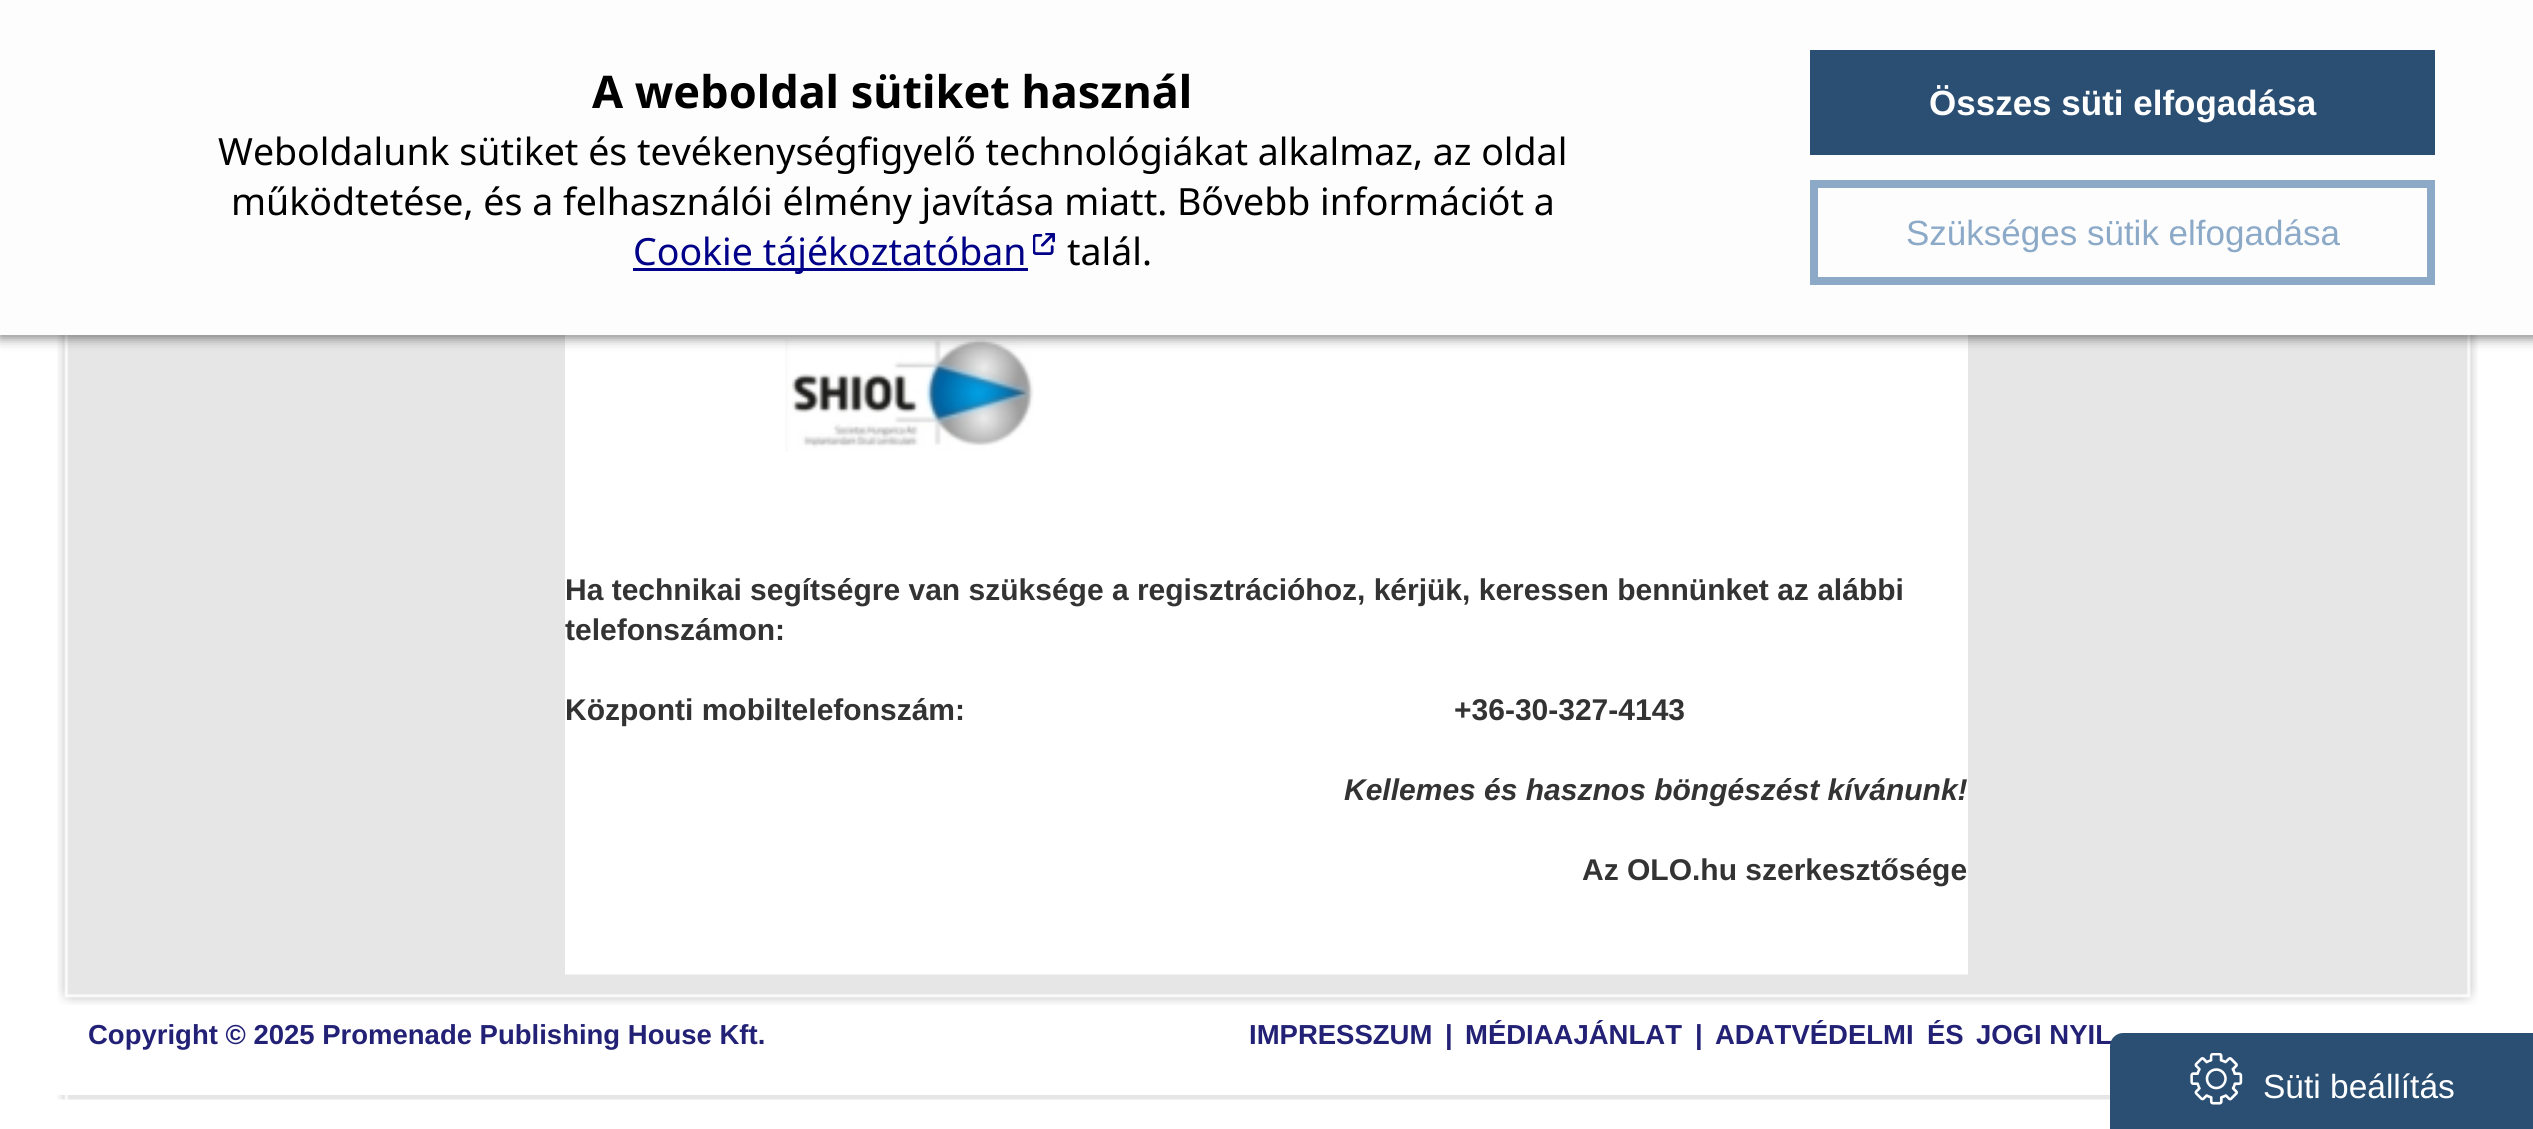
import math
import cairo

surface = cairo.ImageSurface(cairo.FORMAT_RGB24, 2533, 1129)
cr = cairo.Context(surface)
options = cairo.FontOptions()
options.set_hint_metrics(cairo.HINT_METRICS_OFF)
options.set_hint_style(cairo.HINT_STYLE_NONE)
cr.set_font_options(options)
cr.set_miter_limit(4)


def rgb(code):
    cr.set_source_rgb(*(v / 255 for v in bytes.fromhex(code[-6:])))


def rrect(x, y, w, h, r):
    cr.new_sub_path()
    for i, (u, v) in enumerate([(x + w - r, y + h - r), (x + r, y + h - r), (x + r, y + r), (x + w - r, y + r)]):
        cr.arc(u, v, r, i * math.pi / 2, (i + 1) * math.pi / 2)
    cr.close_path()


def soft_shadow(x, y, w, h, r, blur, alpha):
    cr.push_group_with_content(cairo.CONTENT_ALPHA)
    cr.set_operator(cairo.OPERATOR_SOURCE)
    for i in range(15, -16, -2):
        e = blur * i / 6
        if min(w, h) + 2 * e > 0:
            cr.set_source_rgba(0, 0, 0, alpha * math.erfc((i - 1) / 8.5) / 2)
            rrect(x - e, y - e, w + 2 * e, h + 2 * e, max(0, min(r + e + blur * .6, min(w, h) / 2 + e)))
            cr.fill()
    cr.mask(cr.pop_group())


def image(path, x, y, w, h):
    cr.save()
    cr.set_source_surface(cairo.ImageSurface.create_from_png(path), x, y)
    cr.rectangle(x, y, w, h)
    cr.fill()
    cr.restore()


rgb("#ffffff")
cr.paint()
image("img/2.png", 57, 335, 2421, 765)
rgb("#ffffff")
cr.rectangle(565, 335, 1403, 640)
cr.fill()
image("img/3.png", 785, 339, 249, 113)
rgb("#000000")
soft_shadow(0, 3, 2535, 335, 0, 6, 0.5)
rgb("#fdfdfd")
cr.rectangle(0, 0, 2533, 335)
cr.fill()
rgb("#000088")
cr.rectangle(633, 268, 395, 3)
cr.fill()
image("img/1.png", 1033, 233, 22, 22)
rgb("#2a4f73")
cr.rectangle(1810, 50, 625, 105)
cr.fill()
cr.rectangle(1814, 184, 617, 97)
rgb("#8caac8")
cr.set_line_width(8)
cr.stroke()
rgb("#ffffff")
cr.rectangle(57, 975, 2421, 120)
cr.fill()
image("img/4.png", 57, 974, 2421, 31)
cr.select_font_face("Noto Sans", cairo.FONT_SLANT_NORMAL, cairo.FONT_WEIGHT_BOLD)
cr.set_font_size(45)
rgb("#000000")
cr.move_to(592, 108)
cr.show_text("A weboldal sütiket használ")
cr.select_font_face("Noto Sans")
cr.set_font_size(37.5)
cr.move_to(218, 165)
cr.show_text("Weboldalunk sütiket és tevékenységfigyelő technológiákat alkalmaz, az oldal")
cr.move_to(231, 215)
cr.show_text("működtetése, és a felhasználói élmény javítása miatt. Bővebb információt a")
rgb("#000088")
cr.move_to(633, 265)
cr.show_text("Cookie tájékoztatóban")
rgb("#000000")
cr.move_to(1067, 265)
cr.show_text("talál.")
cr.select_font_face("Liberation Sans", cairo.FONT_SLANT_NORMAL, cairo.FONT_WEIGHT_BOLD)
cr.set_font_size(35)
rgb("#ffffff")
cr.move_to(1929, 115)
cr.show_text("Összes süti elfogadása")
cr.select_font_face("Liberation Sans")
rgb("#8caac8")
cr.move_to(1906, 245)
cr.show_text("Szükséges sütik elfogadása")
cr.select_font_face("Liberation Sans", cairo.FONT_SLANT_NORMAL, cairo.FONT_WEIGHT_BOLD)
cr.set_font_size(30)
rgb("#333333")
for x, y, s in [
    (565, 600, "Ha technikai segítségre van szüksége a regisztrációhoz, kérjük, keressen bennünket az alábbi"),
    (565, 640, "telefonszámon:"),
    (565, 720, "Központi mobiltelefonszám:"),
    (1454, 720, "+36-30-327-4143"),
]:
    cr.move_to(x, y)
    cr.show_text(s)
cr.select_font_face("Liberation Sans", cairo.FONT_SLANT_ITALIC, cairo.FONT_WEIGHT_BOLD)
cr.move_to(1344, 800)
cr.show_text("Kellemes és hasznos böngészést kívánunk!")
cr.select_font_face("Liberation Sans", cairo.FONT_SLANT_NORMAL, cairo.FONT_WEIGHT_BOLD)
cr.move_to(1582, 880)
cr.show_text("Az OLO.hu szerkesztősége")
cr.set_font_size(27.5)
rgb("#232176")
cr.move_to(88, 1044)
cr.show_text("Copyright © 2025 Promenade Publishing House Kft.")
cr.move_to(1249, 1044)
cr.show_text("IMPRESSZUM")
cr.save()
cr.rectangle(83, 1020, 2370, 30)
cr.clip()
for x, y, s in [
    (1445, 1044, "|"),
    (1465, 1044, "MÉDIAAJÁNLAT"),
    (1695, 1044, "|"),
    (1715, 1044, "ADATVÉDELMI"),
    (1927, 1044, "ÉS"),
]:
    cr.move_to(x, y)
    cr.show_text(s)
cr.restore()
cr.move_to(1976, 1044)
cr.show_text("JOGI NYIL")
rgb("#2b4f73")
cr.new_path()
cr.move_to(2123, 1033)
cr.line_to(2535, 1033)
cr.line_to(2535, 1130)
cr.line_to(2110, 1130)
cr.line_to(2110, 1046)
cr.curve_to(2110, 1039, 2116, 1033, 2123, 1033)
cr.close_path()
cr.fill()
image("img/5.png", 2190, 1053, 53, 52)
cr.select_font_face("Liberation Sans")
cr.set_font_size(33.5)
rgb("#ffffff")
cr.move_to(2263, 1098)
cr.show_text("Süti beállítás")
surface.write_to_png("page.png")
